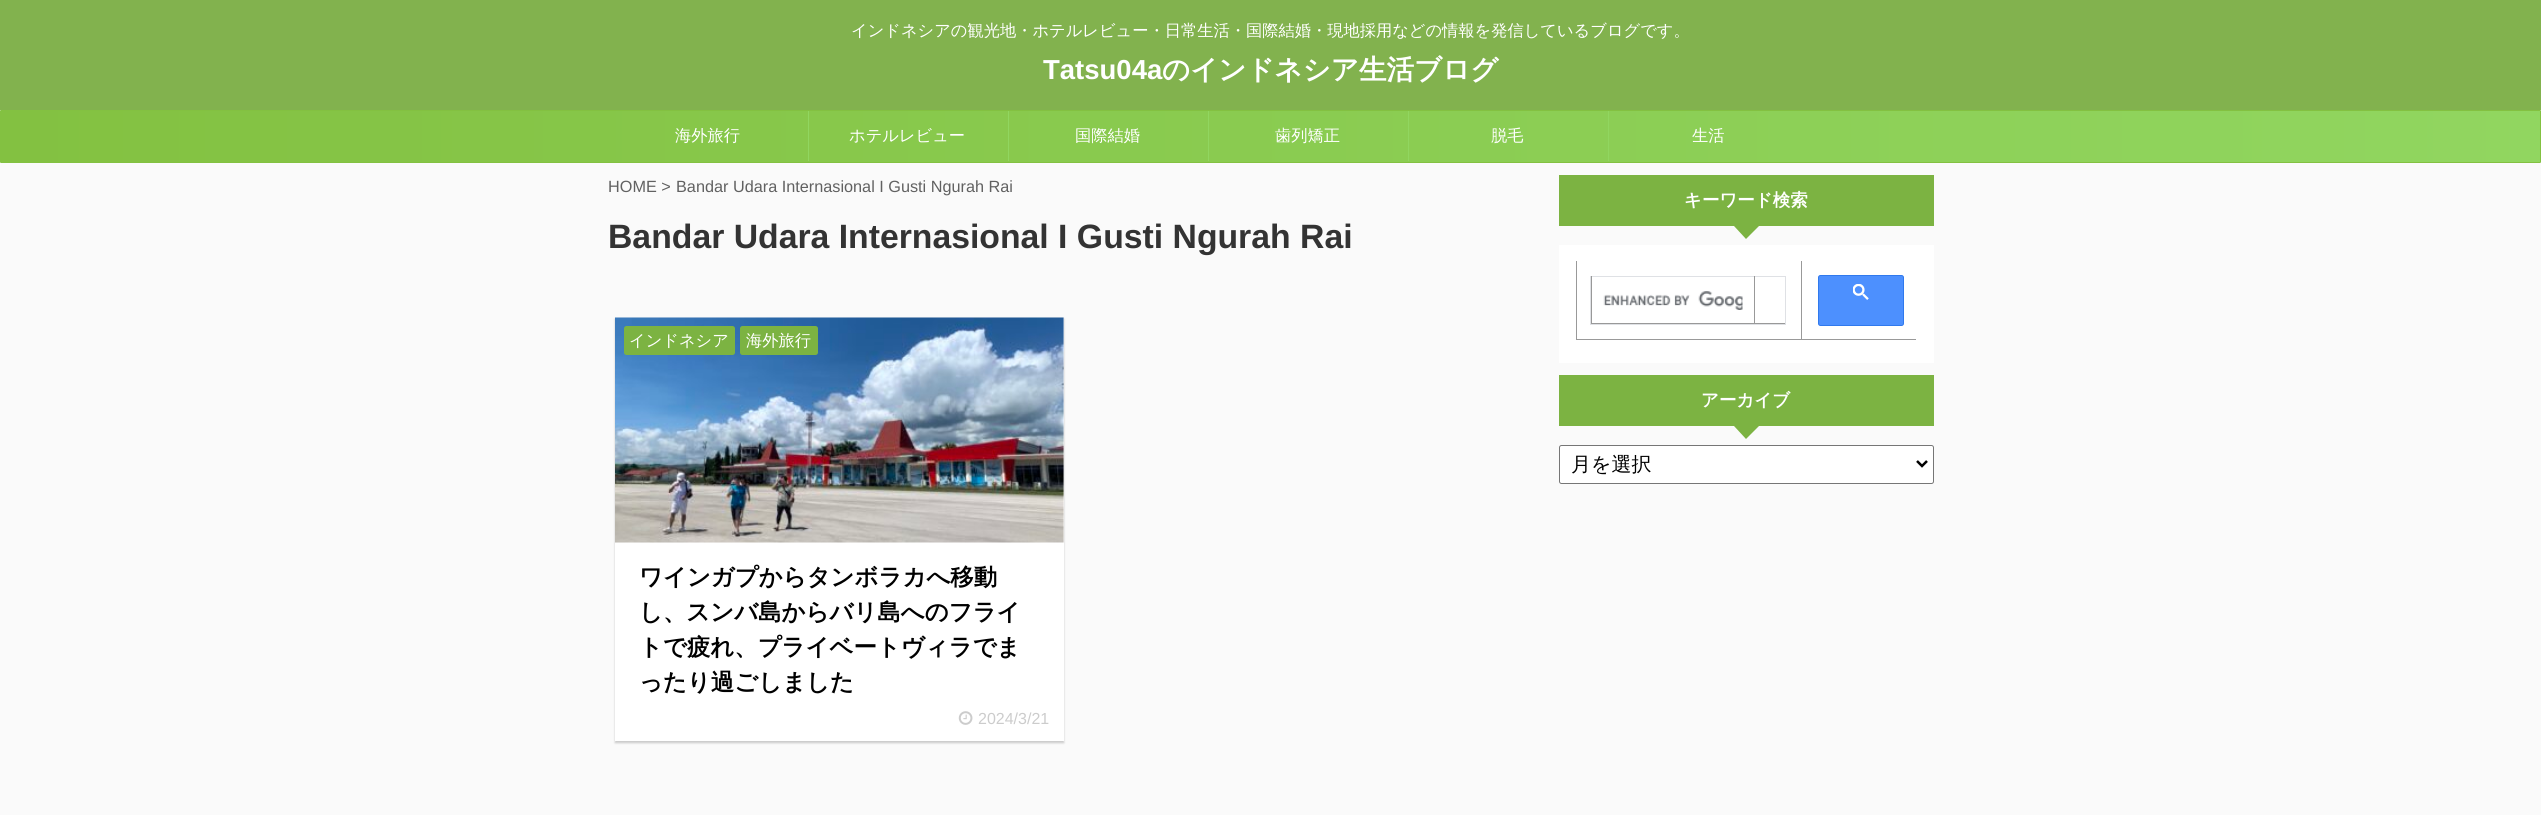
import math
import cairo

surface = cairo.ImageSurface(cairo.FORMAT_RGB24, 2541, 815)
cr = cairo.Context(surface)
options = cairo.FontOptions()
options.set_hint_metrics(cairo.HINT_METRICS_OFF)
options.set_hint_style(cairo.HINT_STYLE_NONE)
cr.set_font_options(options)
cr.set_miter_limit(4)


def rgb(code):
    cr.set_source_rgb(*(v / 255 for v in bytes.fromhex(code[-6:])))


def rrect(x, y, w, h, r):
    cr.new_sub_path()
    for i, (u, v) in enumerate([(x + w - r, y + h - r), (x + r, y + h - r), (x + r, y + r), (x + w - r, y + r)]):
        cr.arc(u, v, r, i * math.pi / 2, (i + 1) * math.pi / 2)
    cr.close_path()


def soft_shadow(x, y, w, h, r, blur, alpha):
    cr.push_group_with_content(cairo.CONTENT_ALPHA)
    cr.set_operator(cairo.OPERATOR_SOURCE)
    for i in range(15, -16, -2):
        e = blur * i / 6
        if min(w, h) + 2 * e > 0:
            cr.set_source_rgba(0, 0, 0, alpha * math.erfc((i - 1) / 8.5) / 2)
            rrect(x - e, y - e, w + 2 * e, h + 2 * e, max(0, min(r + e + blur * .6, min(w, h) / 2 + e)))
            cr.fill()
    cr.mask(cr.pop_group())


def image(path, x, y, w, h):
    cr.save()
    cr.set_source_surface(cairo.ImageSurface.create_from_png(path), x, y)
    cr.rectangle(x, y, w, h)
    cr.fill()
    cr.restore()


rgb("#fafafa")
cr.paint()
rgb("#82b24e")
cr.rectangle(0, 0, 2541, 110)
cr.fill()
gradient = cairo.LinearGradient(2540, 136, 1.2, 136)
gradient.add_color_stop_rgba(0, 0.569, 0.839, 0.376, 1)
gradient.add_color_stop_rgba(1, 0.514, 0.757, 0.255, 1)
cr.set_source(gradient)
cr.rectangle(1, 111, 2539, 51)
cr.fill()
rrect(0.5, 110.5, 2540, 52, 0.5)
rgb("#83c141")
cr.set_line_width(1)
cr.stroke()
for x, y, w, h, color in [
    (808, 111, 1, 50, "#91d660"),
    (1008, 111, 1, 50, "#91d660"),
    (1208, 111, 1, 50, "#91d660"),
    (1408, 111, 1, 50, "#91d660"),
    (1608, 111, 1, 50, "#91d660"),
]:
    rgb(color)
    cr.rectangle(x, y, w, h)
    cr.fill()
rgb("#000000")
soft_shadow(615, 319, 449, 424, 0, 1, 0.2)
rgb("#ffffff")
cr.rectangle(615, 318, 449, 423)
cr.fill()
image("img/1.png", 615, 317, 449, 226)
rgb("#7cb342")
rrect(624, 326, 111, 29, 2.5)
cr.fill()
rrect(740, 326, 78, 29, 2.5)
cr.fill()
image("img/2.png", 958, 711, 15, 14)
cr.rectangle(1559, 175, 375, 51)
cr.fill()
cr.new_path()
cr.move_to(1734, 226)
cr.line_to(1759, 226)
cr.line_to(1746, 239)
cr.close_path()
cr.fill()
for x, y, w, h, color in [
    (1559, 245, 375, 118, "#ffffff"),
    (1801, 339, 115, 1, "#999999"),
    (1801, 261, 1, 79, "#999999"),
    (1576, 339, 227, 1, "#999999"),
    (1576, 261, 1, 79, "#999999"),
]:
    rgb(color)
    cr.rectangle(x, y, w, h)
    cr.fill()
cr.rectangle(1590.5, 276.5, 195, 48)
rgb("#dfe1e5")
cr.stroke()
for x, y, w, h, color in [
    (1754, 323, 31, 1, "#999999"),
    (1754, 276, 1, 48, "#999999"),
    (1591, 323, 164, 1, "#999999"),
    (1591, 276, 1, 48, "#999999"),
]:
    rgb(color)
    cr.rectangle(x, y, w, h)
    cr.fill()
image("img/3.png", 1603, 291, 140, 19)
rgb("#4d90fe")
rrect(1818.5, 275.5, 85, 50, 2)
cr.fill_preserve()
rgb("#3079ed")
cr.stroke()
image("img/4.png", 1853, 284, 16, 16)
rgb("#7cb342")
cr.rectangle(1559, 375, 375, 51)
cr.fill()
cr.new_path()
cr.move_to(1734, 426)
cr.line_to(1759, 426)
cr.line_to(1746, 439)
cr.close_path()
cr.fill()
rgb("#ffffff")
rrect(1559.5, 445.5, 374, 38, 2)
cr.fill_preserve()
rgb("#767676")
cr.stroke()
cr.new_path()
cr.move_to(1917, 461)
cr.line_to(1922, 466)
cr.line_to(1927, 461)
rgb("#000000")
cr.set_line_width(2.5)
cr.stroke()
cr.select_font_face("WenQuanYi Zen Hei Medium")
cr.set_font_size(16.25)
rgb("#ffffff")
cr.move_to(851, 36)
cr.show_text("インドネシアの観光地・ホテルレビュー・日常生活・国際結婚・現地採用などの情報を発信しているブログです。")
cr.select_font_face("Liberation Sans", cairo.FONT_SLANT_NORMAL, cairo.FONT_WEIGHT_BOLD)
cr.set_font_size(27.5)
cr.move_to(1043, 79)
cr.show_text("Tatsu04a")
cr.select_font_face("WenQuanYi Zen Hei", cairo.FONT_SLANT_NORMAL, cairo.FONT_WEIGHT_BOLD)
cr.move_to(1162, 79)
cr.show_text("のインドネシア生活ブログ")
cr.select_font_face("WenQuanYi Zen Hei Medium")
cr.set_font_size(16.25)
for x, y, s in [
    (675, 141, "海外旅行"),
    (849, 141, "ホテルレビュー"),
    (1075, 141, "国際結婚"),
    (1275, 141, "歯列矯正"),
    (1491, 141, "脱毛"),
    (1692, 141, "生活"),
]:
    cr.move_to(x, y)
    cr.show_text(s)
cr.select_font_face("Liberation Sans")
rgb("#616161")
cr.move_to(608, 192)
cr.show_text("HOME >")
cr.move_to(676, 192)
cr.show_text("Bandar Udara Internasional I Gusti Ngurah Rai")
cr.select_font_face("Liberation Sans", cairo.FONT_SLANT_NORMAL, cairo.FONT_WEIGHT_BOLD)
cr.set_font_size(33.75)
rgb("#333333")
cr.move_to(608, 248)
cr.show_text("Bandar Udara Internasional I Gusti Ngurah Rai")
cr.select_font_face("WenQuanYi Zen Hei Medium")
cr.set_font_size(16.25)
rgb("#ffffff")
cr.move_to(629, 346)
cr.show_text("インドネシア")
cr.move_to(746, 346)
cr.show_text("海外旅行")
cr.select_font_face("WenQuanYi Zen Hei", cairo.FONT_SLANT_NORMAL, cairo.FONT_WEIGHT_BOLD)
cr.set_font_size(23.4)
rgb("#000000")
for x, y, s in [
    (639, 585, "ワインガプからタンボラカへ移動"),
    (639, 620, "し、スンバ島からバリ島へのフライ"),
    (639, 655, "トで疲れ、プライベートヴィラでま"),
    (639, 690, "ったり過ごしました"),
]:
    cr.move_to(x, y)
    cr.show_text(s)
cr.select_font_face("Liberation Sans")
cr.set_font_size(16)
rgb("#cccccc")
cr.move_to(978, 724)
cr.show_text("2024/3/21")
cr.select_font_face("WenQuanYi Zen Hei", cairo.FONT_SLANT_NORMAL, cairo.FONT_WEIGHT_BOLD)
cr.set_font_size(17.5)
rgb("#ffffff")
cr.move_to(1684, 206)
cr.show_text("キーワード検索")
cr.move_to(1701, 406)
cr.show_text("アーカイブ")
cr.select_font_face("WenQuanYi Zen Hei Medium")
cr.set_font_size(20)
rgb("#000000")
cr.move_to(1571, 471)
cr.show_text("月を選択")
surface.write_to_png("page.png")
